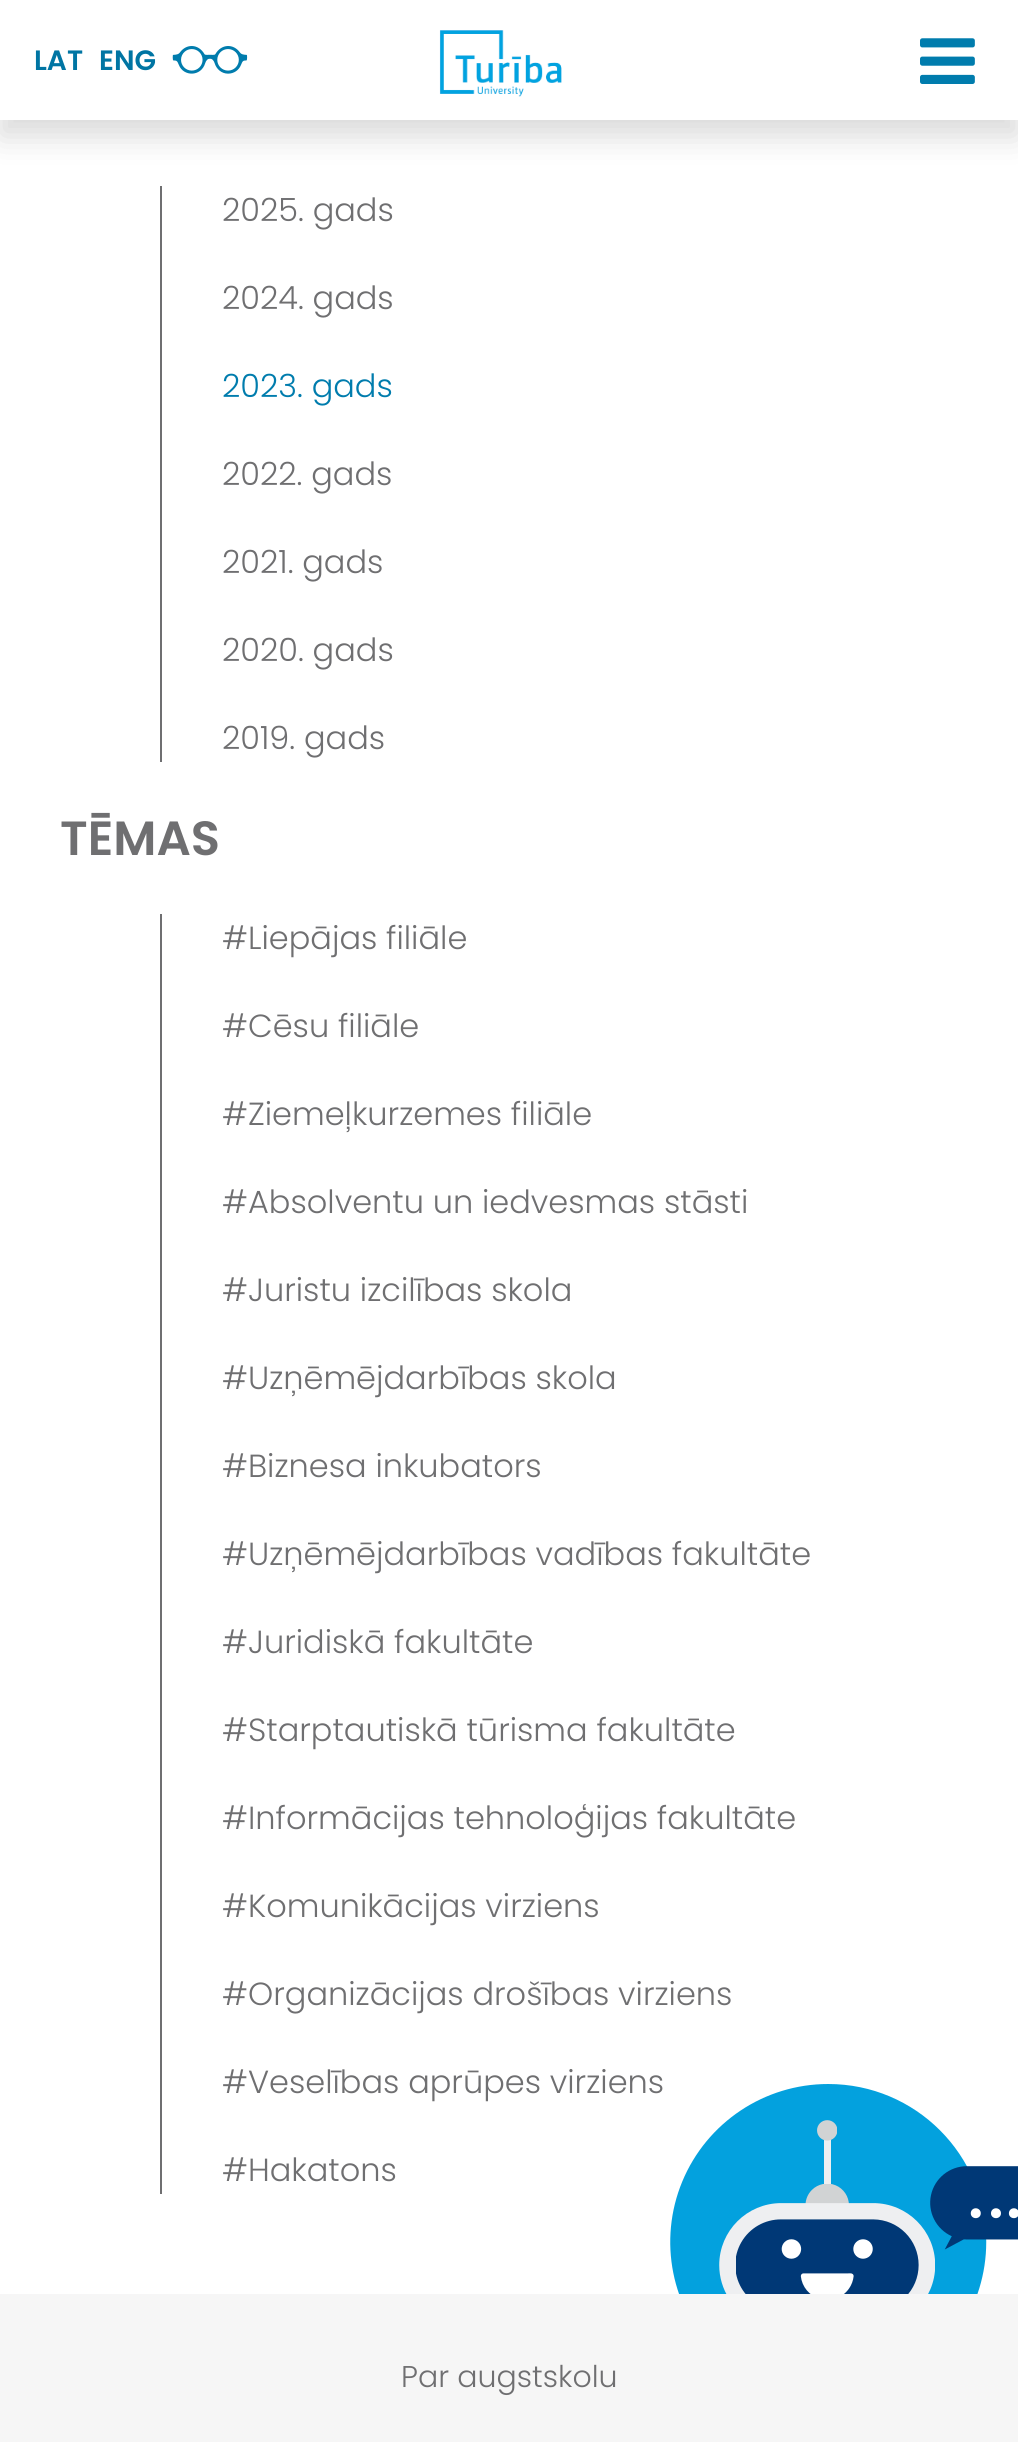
import math
import cairo

surface = cairo.ImageSurface(cairo.FORMAT_RGB24, 1018, 2442)
cr = cairo.Context(surface)
options = cairo.FontOptions()
options.set_hint_metrics(cairo.HINT_METRICS_OFF)
options.set_hint_style(cairo.HINT_STYLE_NONE)
cr.set_font_options(options)
cr.set_miter_limit(4)


def rgb(code):
    cr.set_source_rgb(*(v / 255 for v in bytes.fromhex(code[-6:])))


def rrect(x, y, w, h, r):
    cr.new_sub_path()
    for i, (u, v) in enumerate([(x + w - r, y + h - r), (x + r, y + h - r), (x + r, y + r), (x + w - r, y + r)]):
        cr.arc(u, v, r, i * math.pi / 2, (i + 1) * math.pi / 2)
    cr.close_path()


def soft_shadow(x, y, w, h, r, blur, alpha):
    cr.push_group_with_content(cairo.CONTENT_ALPHA)
    cr.set_operator(cairo.OPERATOR_SOURCE)
    for i in range(15, -16, -2):
        e = blur * i / 6
        if min(w, h) + 2 * e > 0:
            cr.set_source_rgba(0, 0, 0, alpha * math.erfc((i - 1) / 8.5) / 2)
            rrect(x - e, y - e, w + 2 * e, h + 2 * e, max(0, min(r + e + blur * .6, min(w, h) / 2 + e)))
            cr.fill()
    cr.mask(cr.pop_group())


def image(path, x, y, w, h):
    cr.save()
    cr.set_source_surface(cairo.ImageSurface.create_from_png(path), x, y)
    cr.rectangle(x, y, w, h)
    cr.fill()
    cr.restore()


rgb("#ffffff")
cr.paint()
rgb("#000000")
soft_shadow(0, 16, 1018, 120, 0, 16, 0.15)
rgb("#ffffff")
cr.rectangle(0, 0, 1018, 120)
cr.fill()
image("img/1.png", 172, 46, 76, 28)
image("img/2.png", 439, 30, 123, 67)
image("img/3.png", 920, 38, 55, 46)
rgb("#6f6f71")
cr.rectangle(160, 186, 2, 576)
cr.fill()
cr.rectangle(160, 914, 2, 1280)
cr.fill()
image("img/4.png", 670, 2084, 348, 210)
rgb("#f6f6f6")
cr.rectangle(0, 2294, 1018, 148)
cr.fill()
cr.select_font_face("Poppins SemiBold")
cr.set_font_size(28)
rgb("#0075a3")
cr.move_to(34, 70)
cr.show_text("LAT")
cr.move_to(99, 70)
cr.show_text("ENG")
cr.select_font_face("Poppins Light")
cr.set_font_size(32)
rgb("#6f6f71")
cr.move_to(222, 221)
cr.show_text("2025. gads")
cr.move_to(222, 309)
cr.show_text("2024. gads")
rgb("#007cad")
cr.move_to(222, 397)
cr.show_text("2023. gads")
rgb("#6f6f71")
for x, y, s in [
    (222, 485, "2022. gads"),
    (222, 573, "2021. gads"),
    (222, 661, "2020. gads"),
    (222, 749, "2019. gads"),
]:
    cr.move_to(x, y)
    cr.show_text(s)
cr.select_font_face("Poppins SemiBold")
cr.set_font_size(48)
cr.move_to(60, 855)
cr.show_text("TĒMAS")
cr.select_font_face("Poppins Light")
cr.set_font_size(32)
for x, y, s in [
    (222, 949, "#Liepājas filiāle"),
    (222, 1037, "#Cēsu filiāle"),
    (222, 1125, "#Ziemeļkurzemes filiāle"),
    (222, 1213, "#Absolventu un iedvesmas stāsti"),
    (222, 1301, "#Juristu izcilības skola"),
    (222, 1389, "#Uzņēmējdarbības skola"),
    (222, 1477, "#Biznesa inkubators"),
    (222, 1565, "#Uzņēmējdarbības vadības fakultāte"),
    (222, 1653, "#Juridiskā fakultāte"),
    (222, 1741, "#Starptautiskā tūrisma fakultāte"),
    (222, 1829, "#Informācijas tehnoloģijas fakultāte"),
    (222, 1917, "#Komunikācijas virziens"),
    (222, 2005, "#Organizācijas drošības virziens"),
    (222, 2093, "#Veselības aprūpes virziens"),
    (222, 2181, "#Hakatons"),
]:
    cr.move_to(x, y)
    cr.show_text(s)
cr.set_font_size(30)
cr.move_to(401, 2387)
cr.show_text("Par augstskolu")
surface.write_to_png("page.png")
